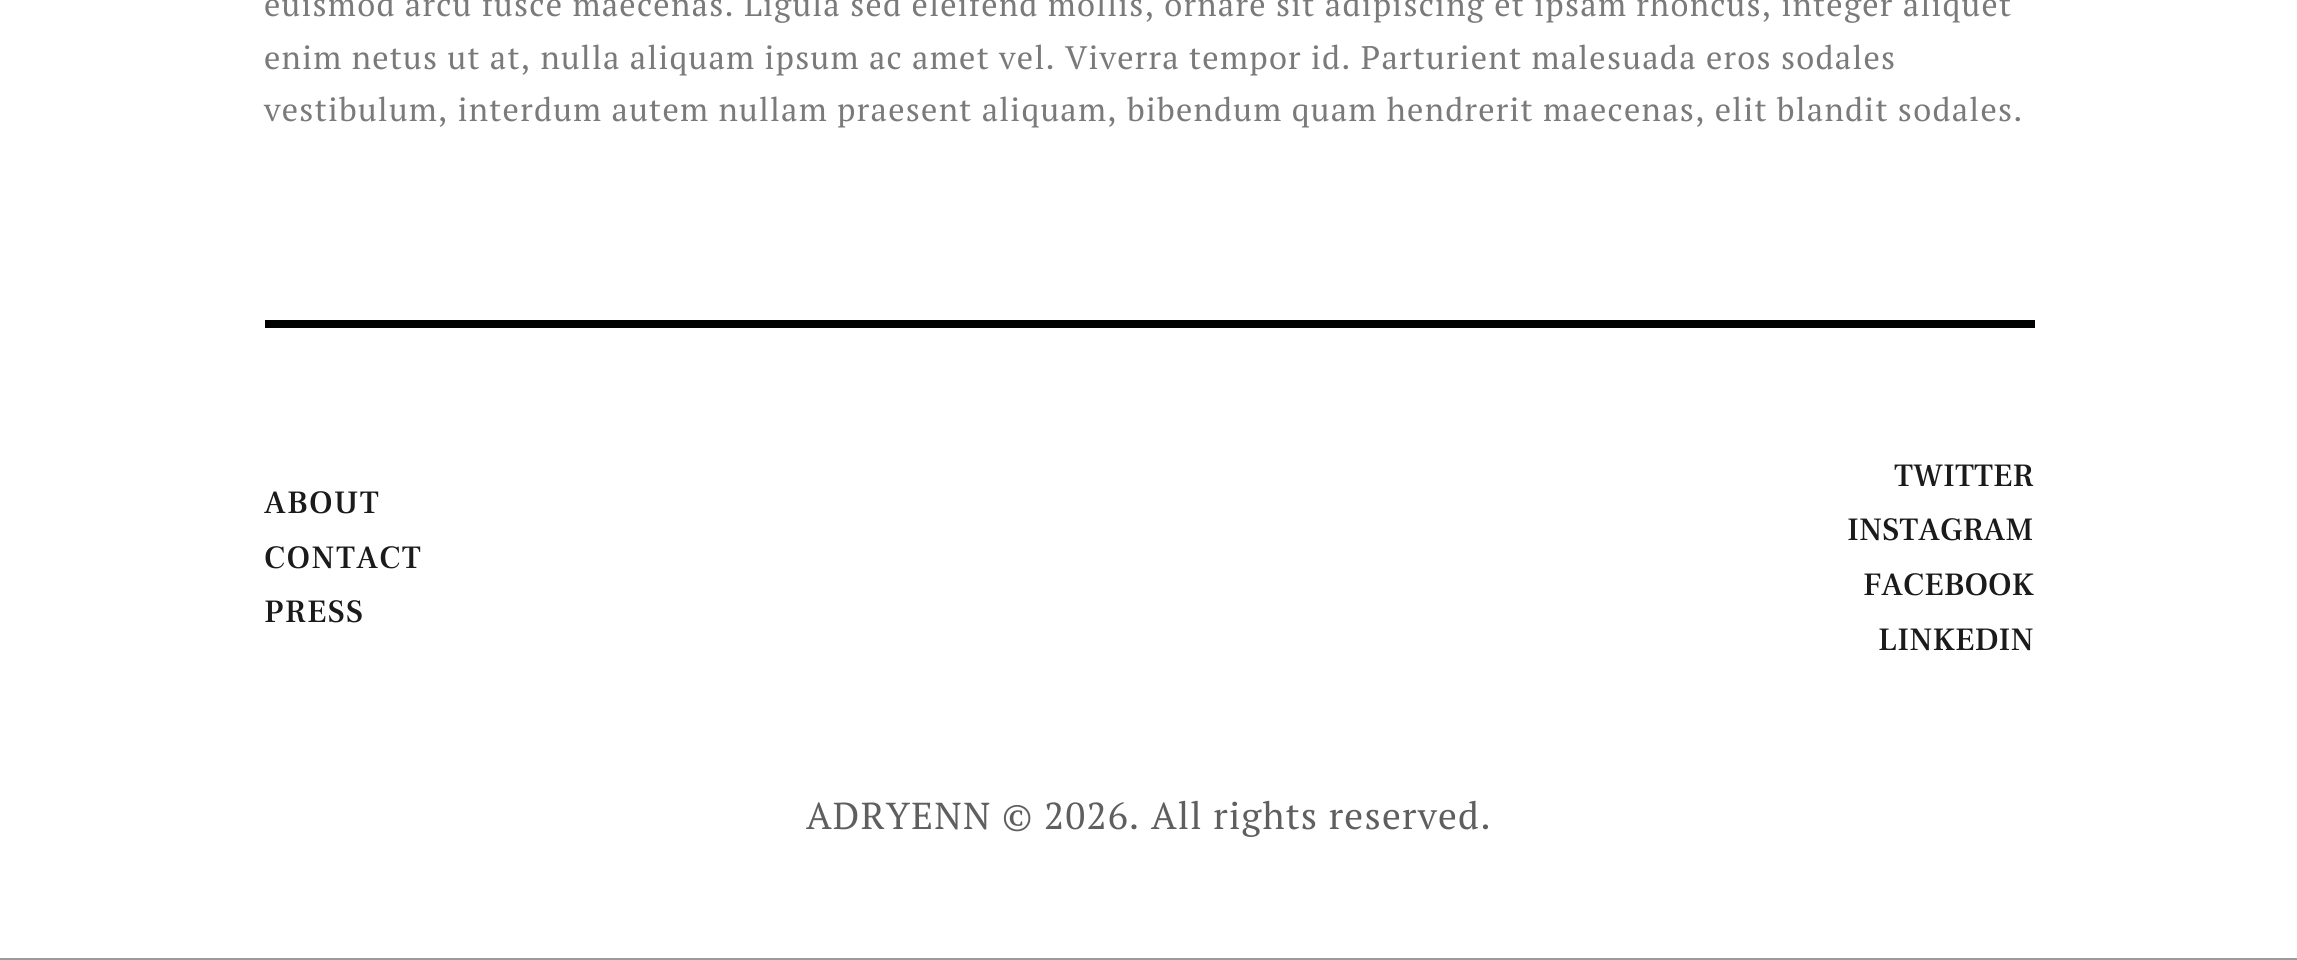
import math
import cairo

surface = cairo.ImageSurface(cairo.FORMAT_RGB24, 2297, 960)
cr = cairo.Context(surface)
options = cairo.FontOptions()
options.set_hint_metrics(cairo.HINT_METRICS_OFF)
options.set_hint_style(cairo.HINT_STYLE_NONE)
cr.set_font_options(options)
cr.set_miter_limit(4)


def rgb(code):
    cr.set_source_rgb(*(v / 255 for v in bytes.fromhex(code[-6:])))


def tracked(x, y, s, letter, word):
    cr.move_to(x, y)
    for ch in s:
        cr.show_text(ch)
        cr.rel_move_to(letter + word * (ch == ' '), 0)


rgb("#ffffff")
cr.paint()
rgb("#9b9b9b")
cr.rectangle(0, 958, 2297, 2)
cr.fill()
rgb("#010202")
cr.rectangle(265, 320, 1770, 8)
cr.fill()
cr.select_font_face("PT Serif")
cr.set_font_size(32.5)
rgb("#7a7a7a")
for x, y, s in [
    (264, 16, "euismod arcu fusce maecenas. Ligula sed eleifend mollis, ornare sit adipiscing et ipsam rhoncus, integer aliquet"),
    (264, 69, "enim netus ut at, nulla aliquam ipsum ac amet vel. Viverra tempor id. Parturient malesuada eros sodales"),
    (264, 121, "vestibulum, interdum autem nullam praesent aliquam, bibendum quam hendrerit maecenas, elit blandit sodales."),
]:
    tracked(x, y, s, 1.25, 0)
cr.select_font_face("Frank Ruhl Libre Medium")
rgb("#1b1b1b")
for x, y, s in [
    (264, 513, "ABOUT"),
    (264, 568, "CONTACT"),
    (264, 622, "PRESS"),
]:
    tracked(x, y, s, 1.25, 0)
for x, y, s in [
    (1894, 486, "TWITTER"),
    (1847, 540, "INSTAGRAM"),
    (1863, 595, "FACEBOOK"),
    (1878, 650, "LINKEDIN"),
]:
    cr.move_to(x, y)
    cr.show_text(s)
cr.select_font_face("PT Serif")
cr.set_font_size(37.5)
rgb("#5f5f5f")
tracked(806, 829, "ADRYENN © 2026. All rights reserved.", 1.25, 0)
surface.write_to_png("page.png")
